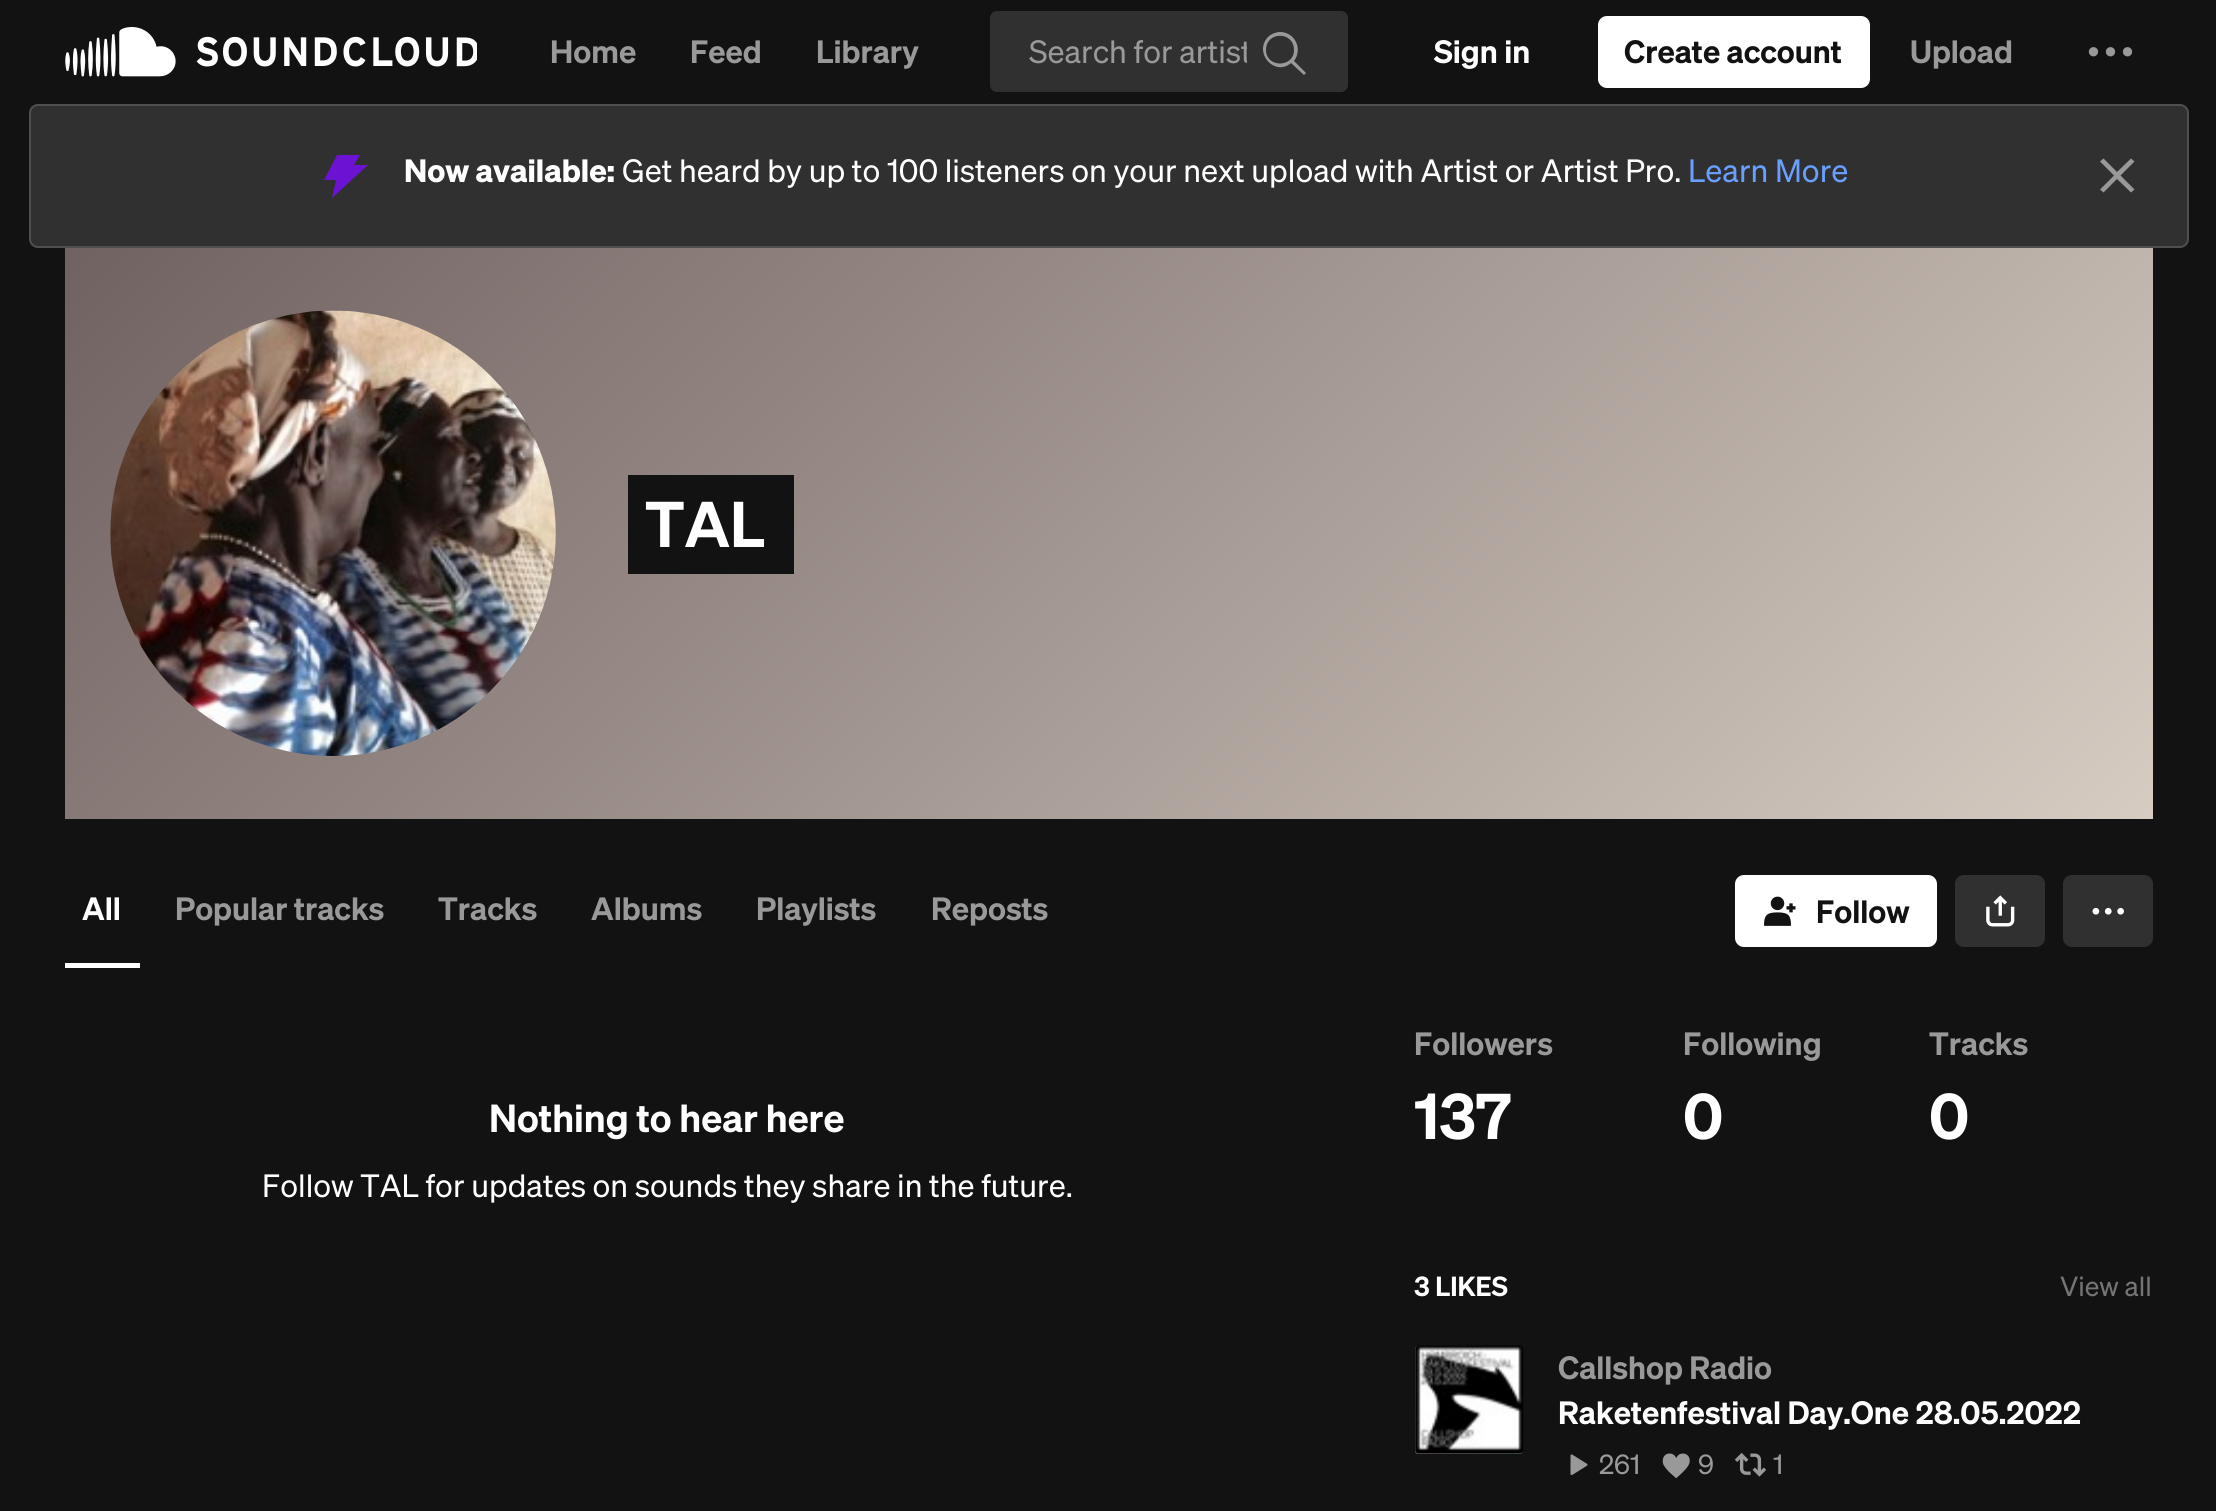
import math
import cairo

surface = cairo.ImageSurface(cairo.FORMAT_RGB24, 2216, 1511)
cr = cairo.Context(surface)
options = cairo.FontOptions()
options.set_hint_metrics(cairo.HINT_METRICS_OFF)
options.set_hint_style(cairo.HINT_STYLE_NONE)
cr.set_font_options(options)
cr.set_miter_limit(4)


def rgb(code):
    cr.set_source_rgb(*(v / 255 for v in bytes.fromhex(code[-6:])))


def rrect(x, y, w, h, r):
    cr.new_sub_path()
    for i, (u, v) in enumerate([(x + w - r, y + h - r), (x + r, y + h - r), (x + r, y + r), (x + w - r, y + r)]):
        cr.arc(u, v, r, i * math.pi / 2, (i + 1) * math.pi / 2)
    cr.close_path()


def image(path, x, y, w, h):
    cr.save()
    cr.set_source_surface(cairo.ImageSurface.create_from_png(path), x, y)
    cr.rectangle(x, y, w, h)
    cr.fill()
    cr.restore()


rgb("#121212")
cr.paint()
image("img/1.png", 65, 27, 412, 50)
rgb("#303030")
rrect(990, 11, 358, 81, 7)
cr.fill()
rgb("#999999")
cr.new_path()
cr.move_to(1280, 32)
cr.curve_to(1276, 32, 1271, 34, 1268, 37)
cr.curve_to(1253, 53, 1275, 77, 1291, 63)
cr.line_to(1304, 75)
cr.line_to(1306, 73)
cr.line_to(1294, 61)
cr.curve_to(1303, 49, 1295, 32, 1280, 32)
cr.close_path()
cr.move_to(1266, 50)
cr.curve_to(1266, 31, 1294, 31, 1294, 50)
cr.curve_to(1294, 68, 1266, 68, 1266, 50)
cr.close_path()
cr.fill()
rgb("#ffffff")
rrect(1598, 16, 272, 72, 9)
cr.fill()
image("img/2.png", 2088, 47, 45, 10)
rgb("#303030")
rrect(29, 104, 2160, 144, 9)
cr.fill()
rrect(30, 105, 2158, 142, 8)
cr.set_source_rgba(1, 1, 1, 0.15)
cr.stroke()
rgb("#6c12d2")
cr.new_path()
cr.move_to(337, 155)
cr.line_to(324, 180)
cr.line_to(336, 180)
cr.line_to(332, 198)
cr.line_to(368, 165)
cr.line_to(354, 165)
cr.line_to(360, 155)
cr.close_path()
cr.fill()
rgb("#999999")
cr.new_path()
cr.move_to(2114, 175.5)
cr.line_to(2100, 189.5)
cr.line_to(2103.5, 192.5)
cr.line_to(2117, 179)
cr.line_to(2131, 192.5)
cr.line_to(2134.5, 189.5)
cr.line_to(2120.5, 175.5)
cr.line_to(2134.5, 161.5)
cr.line_to(2131, 158.5)
cr.line_to(2117, 172)
cr.line_to(2103.5, 158.5)
cr.line_to(2100, 161.5)
cr.close_path()
cr.fill()
gradient = cairo.LinearGradient(1774, 1198, 444, -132)
gradient.add_color_stop_rgba(0, 0.839, 0.8, 0.761, 1)
gradient.add_color_stop_rgba(1, 0.439, 0.384, 0.38, 1)
cr.set_source(gradient)
cr.rectangle(65, 248, 2088, 571)
cr.fill()
image("img/3.png", 110, 310, 446, 446)
rgb("#121212")
cr.rectangle(628, 475, 166, 99)
cr.fill()
rgb("#ffffff")
cr.rectangle(65, 963, 75, 5)
cr.fill()
rrect(1735, 875, 202, 72, 9)
cr.fill()
image("img/4.png", 1764, 896, 32, 30)
rgb("#303030")
rrect(1955, 875, 90, 72, 9)
cr.fill()
image("img/5.png", 1986, 895, 29, 32)
rrect(2063, 875, 90, 72, 9)
cr.fill()
image("img/6.png", 2092, 907, 32, 8)
gradient = cairo.LinearGradient(1415, 1346, 1523, 1454)
gradient.add_color_stop_rgba(0, 0.902, 0.518, 0.431, 1)
gradient.add_color_stop_rgba(1, 0.439, 0.573, 0.612, 1)
cr.set_source(gradient)
rrect(1415, 1346, 108, 108, 3)
cr.fill()
image("img/7.png", 1415, 1345, 109, 109)
rrect(1416, 1347, 106, 106, 2)
cr.set_source_rgba(0.071, 0.071, 0.071, 0.1)
cr.stroke()
image("img/8.png", 1570, 1454, 18, 21)
image("img/9.png", 1662, 1453, 28, 26)
image("img/10.png", 1734, 1452, 33, 25)
cr.select_font_face("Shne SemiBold")
cr.set_font_size(31.5)
rgb("#999999")
for x, y, s in [
    (550, 63, "Home"),
    (690, 63, "Feed"),
    (816, 63, "Library"),
]:
    cr.move_to(x, y)
    cr.show_text(s)
cr.save()
cr.rectangle(1028, 27, 219, 50)
cr.clip()
cr.select_font_face("Shne")
cr.move_to(1029, 63)
cr.show_text("Search for artist")
cr.restore()
rgb("#ffffff")
cr.move_to(1434, 63)
cr.show_text("Sign in")
rgb("#121212")
cr.move_to(1624, 63)
cr.show_text("Create account")
rgb("#999999")
cr.move_to(1910, 63)
cr.show_text("Upload")
cr.select_font_face("Shne", cairo.FONT_SLANT_NORMAL, cairo.FONT_WEIGHT_BOLD)
rgb("#ffffff")
cr.move_to(404, 182)
cr.show_text("Now available:")
cr.select_font_face("Shne")
cr.move_to(622, 182)
cr.show_text("Get heard by up to 100 listeners on your next upload with Artist or Artist Pro.")
rgb("#699fff")
cr.move_to(1688, 182)
cr.show_text("Learn More")
cr.select_font_face("Shne SemiBold")
cr.set_font_size(63)
rgb("#ffffff")
cr.move_to(645, 547)
cr.show_text("TAL")
cr.set_font_size(31.5)
cr.move_to(82, 920)
cr.show_text("All")
rgb("#999999")
for x, y, s in [
    (175, 920, "Popular tracks"),
    (438, 920, "Tracks"),
    (591, 920, "Albums"),
    (756, 920, "Playlists"),
    (931, 920, "Reposts"),
]:
    cr.move_to(x, y)
    cr.show_text(s)
rgb("#121212")
cr.move_to(1816, 923)
cr.show_text("Follow")
cr.set_font_size(38.25)
rgb("#ffffff")
cr.move_to(489, 1132)
cr.show_text("Nothing to hear here")
cr.select_font_face("Shne")
cr.set_font_size(31.5)
cr.move_to(262, 1197)
cr.show_text("Follow TAL for updates on sounds they share in the future.")
cr.select_font_face("Shne SemiBold")
rgb("#999999")
cr.move_to(1414, 1055)
cr.show_text("Followers")
cr.set_font_size(63)
rgb("#ffffff")
cr.move_to(1414, 1139)
cr.show_text("137")
cr.set_font_size(31.5)
rgb("#999999")
cr.move_to(1683, 1055)
cr.show_text("Following")
cr.set_font_size(63)
rgb("#ffffff")
cr.move_to(1683, 1139)
cr.show_text("0")
cr.set_font_size(31.5)
rgb("#999999")
cr.move_to(1929, 1055)
cr.show_text("Tracks")
cr.set_font_size(63)
rgb("#ffffff")
cr.move_to(1929, 1139)
cr.show_text("0")
cr.set_font_size(27)
cr.move_to(1414, 1296)
cr.show_text("3 LIKES")
cr.select_font_face("Shne")
rgb("#757575")
cr.move_to(2060, 1296)
cr.show_text("View all")
cr.select_font_face("Shne SemiBold")
cr.set_font_size(31.5)
rgb("#999999")
cr.move_to(1558, 1379)
cr.show_text("Callshop Radio")
rgb("#ffffff")
cr.move_to(1558, 1424)
cr.show_text("Raketenfestival Day.One 28.05.2022")
cr.select_font_face("Shne")
cr.set_font_size(27)
rgb("#999999")
for x, y, s in [
    (1599, 1474, "261"),
    (1698, 1474, "9"),
    (1773, 1474, "1"),
]:
    cr.move_to(x, y)
    cr.show_text(s)
surface.write_to_png("page.png")
